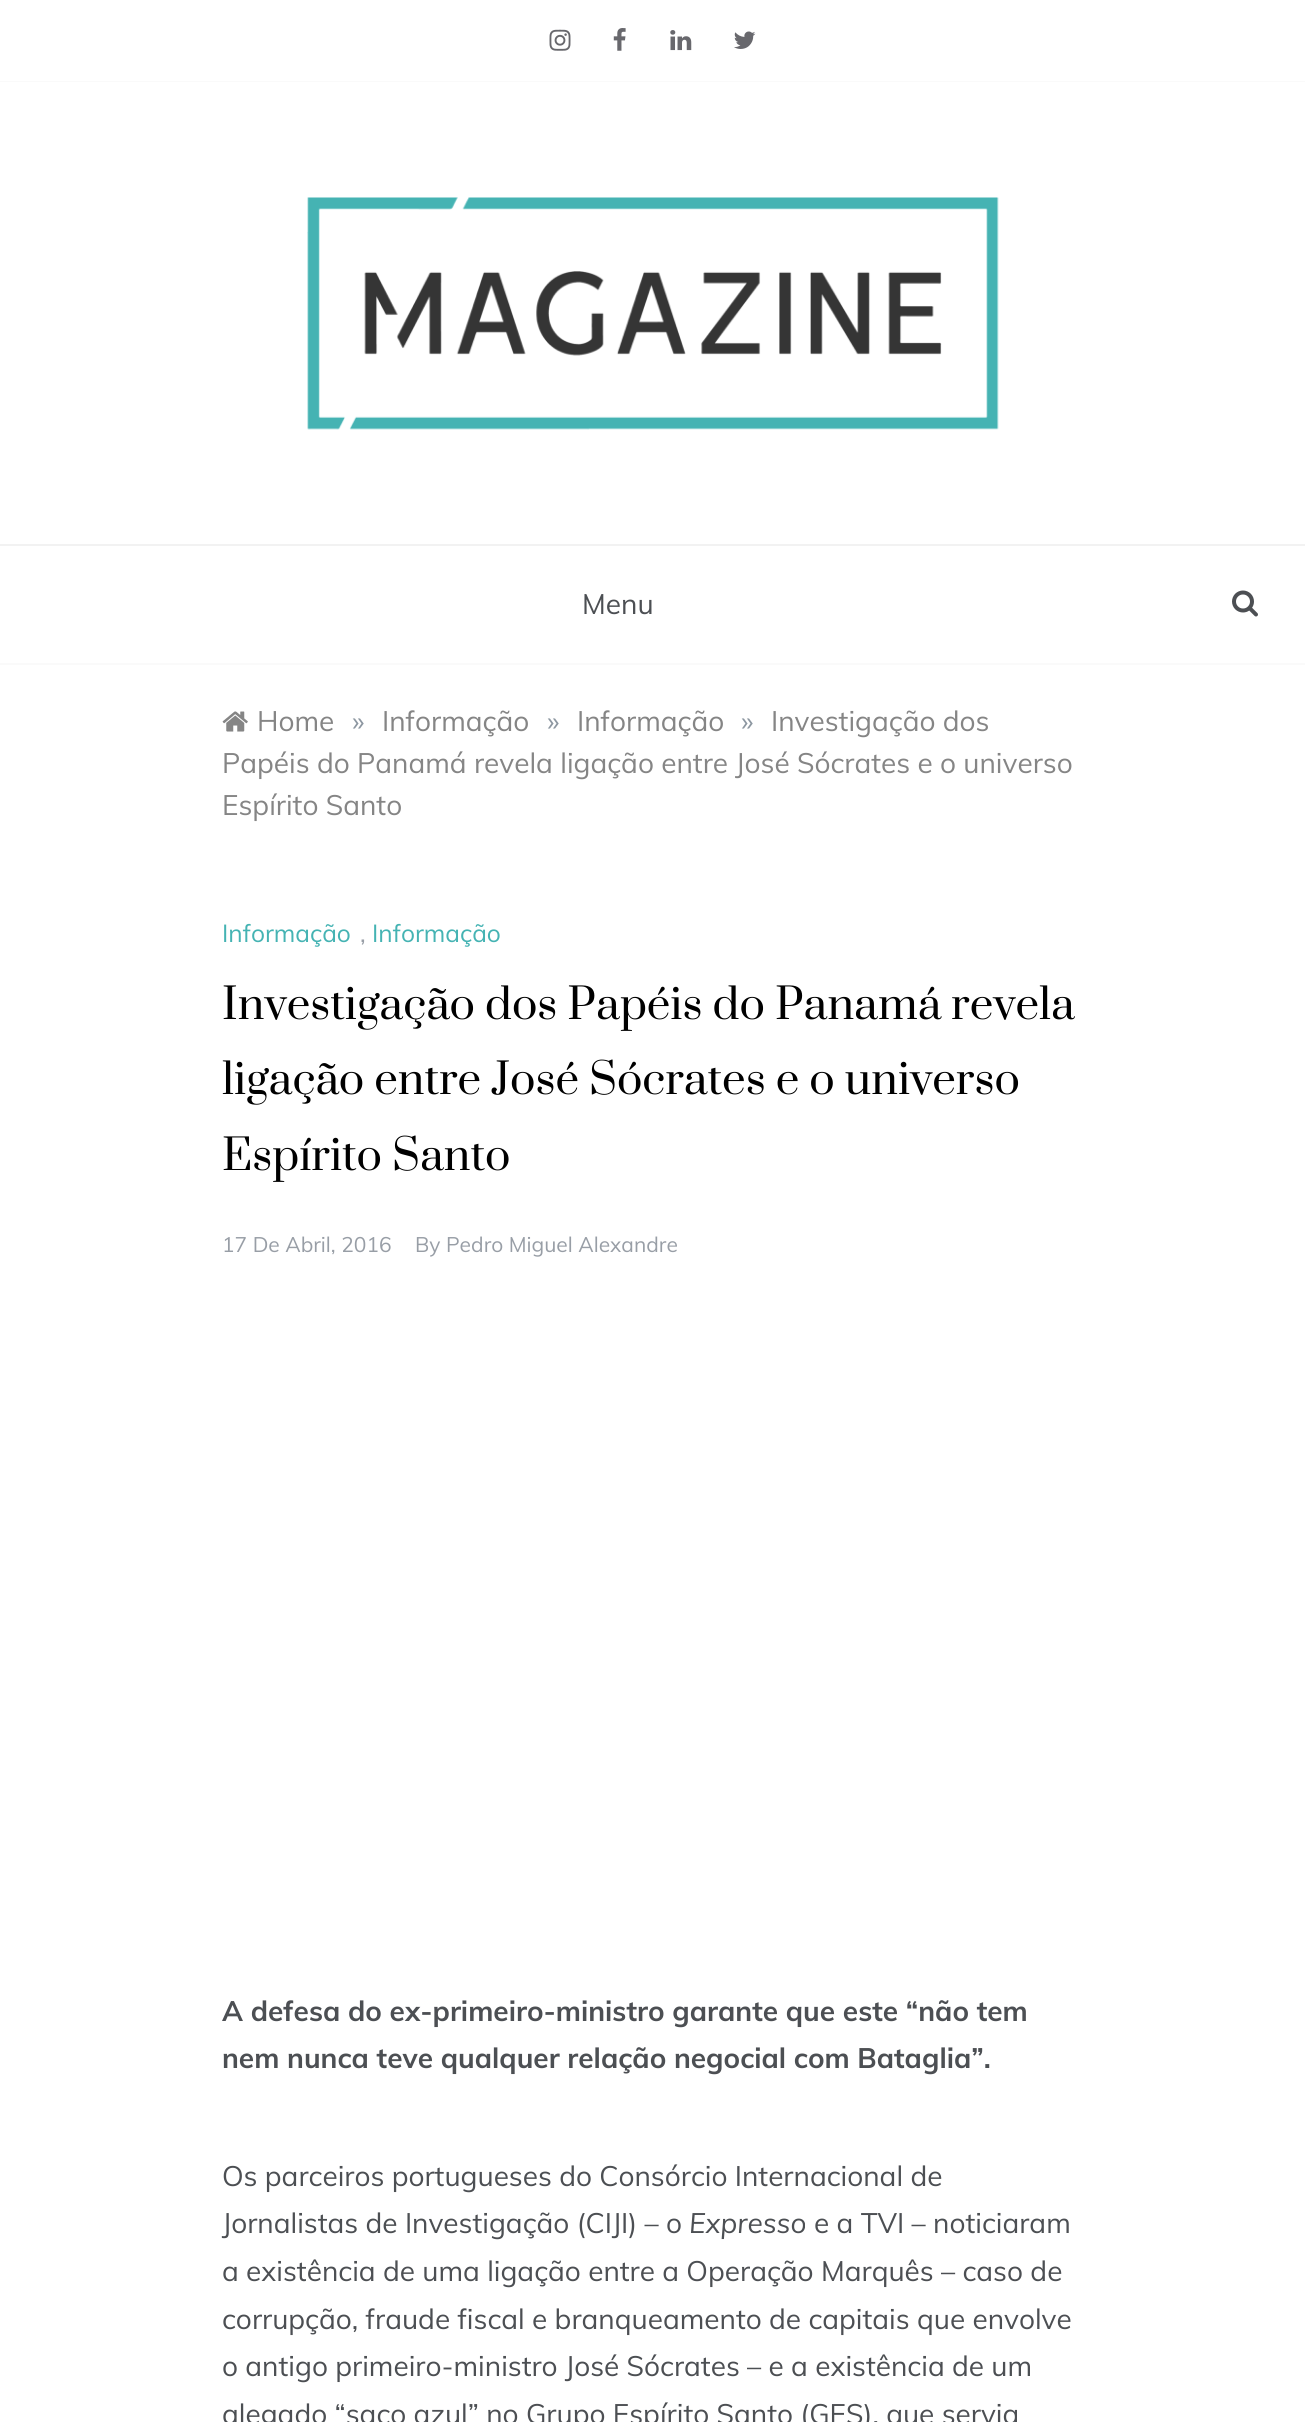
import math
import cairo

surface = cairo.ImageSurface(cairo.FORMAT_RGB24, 1305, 2422)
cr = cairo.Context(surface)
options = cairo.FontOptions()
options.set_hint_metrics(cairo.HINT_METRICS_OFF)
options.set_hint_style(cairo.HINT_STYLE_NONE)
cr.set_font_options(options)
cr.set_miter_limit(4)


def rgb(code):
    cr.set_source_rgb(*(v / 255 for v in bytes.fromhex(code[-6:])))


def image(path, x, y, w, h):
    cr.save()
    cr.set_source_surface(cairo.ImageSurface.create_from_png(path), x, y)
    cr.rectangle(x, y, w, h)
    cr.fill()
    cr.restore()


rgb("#ffffff")
cr.paint()
rgb("#fafafa")
cr.rectangle(0, 81, 1305, 1)
cr.fill()
image("img/1.png", 549, 29, 22, 22)
image("img/2.png", 613, 28, 13, 23)
image("img/3.png", 670, 30, 22, 21)
image("img/4.png", 734, 31, 22, 18)
cr.rectangle(0, 663, 1305, 2)
cr.fill()
rgb("#f2f2f2")
cr.rectangle(0, 544, 1305, 2)
cr.fill()
image("img/5.png", 307, 197, 692, 233)
image("img/6.png", 1232, 590, 26, 27)
image("img/7.png", 222, 711, 26, 21)
cr.select_font_face("Muli")
cr.set_font_size(28)
rgb("#4c4f53")
cr.move_to(582, 614)
cr.show_text("Menu")
rgb("#858585")
cr.move_to(257, 731)
cr.show_text("Home")
rgb("#8d97a1")
cr.move_to(352, 731)
cr.show_text("»")
rgb("#858585")
cr.move_to(382, 731)
cr.show_text("Informação")
rgb("#8d97a1")
cr.move_to(547, 731)
cr.show_text("»")
rgb("#858585")
cr.move_to(577, 731)
cr.show_text("Informação")
rgb("#8d97a1")
cr.move_to(741, 731)
cr.show_text("»")
rgb("#858585")
for x, y, s in [
    (771, 731, "Investigação dos"),
    (222, 773, "Papéis do Panamá revela ligação entre José Sócrates e o universo"),
    (222, 815, "Espírito Santo"),
]:
    cr.move_to(x, y)
    cr.show_text(s)
cr.set_font_size(24.5)
rgb("#45b3b3")
cr.move_to(222, 942)
cr.show_text("Informação")
rgb("#989ea6")
cr.move_to(360, 942)
cr.show_text(",")
rgb("#45b3b3")
cr.move_to(372, 942)
cr.show_text("Informação")
cr.select_font_face("Prata")
cr.set_font_size(42)
rgb("#000000")
for x, y, s in [
    (222, 1019, "Investigação dos Papéis do Panamá revela"),
    (222, 1094, "ligação entre José Sócrates e o universo"),
    (222, 1170, "Espírito Santo"),
]:
    cr.move_to(x, y)
    cr.show_text(s)
cr.select_font_face("Muli")
cr.set_font_size(21)
rgb("#989ea6")
cr.move_to(222, 1252)
cr.show_text("17 De Abril, 2016")
cr.move_to(415, 1252)
cr.show_text("By Pedro Miguel Alexandre")
cr.select_font_face("Muli", cairo.FONT_SLANT_NORMAL, cairo.FONT_WEIGHT_BOLD)
cr.set_font_size(28)
rgb("#4c4f53")
cr.move_to(222, 2021)
cr.show_text("A defesa do ex-primeiro-ministro garante que este “não tem")
cr.move_to(222, 2068)
cr.show_text("nem nunca teve qualquer relação negocial com Bataglia”.")
cr.select_font_face("Muli")
cr.move_to(222, 2186)
cr.show_text("Os parceiros portugueses do Consórcio Internacional de")
cr.move_to(222, 2233)
cr.show_text("Jornalistas de Investigação (CIJI) – o")
cr.select_font_face("Muli", cairo.FONT_SLANT_ITALIC)
cr.move_to(689, 2233)
cr.show_text("Expresso")
cr.select_font_face("Muli")
for x, y, s in [
    (814, 2233, "e a TVI – noticiaram"),
    (222, 2281, "a existência de uma ligação entre a Operação Marquês – caso de"),
    (222, 2329, "corrupção, fraude fiscal e branqueamento de capitais que envolve"),
    (222, 2376, "o antigo primeiro-ministro José Sócrates – e a existência de um"),
    (222, 2424, "alegado “saco azul” no Grupo Espírito Santo (GES), que servia"),
]:
    cr.move_to(x, y)
    cr.show_text(s)
surface.write_to_png("page.png")
